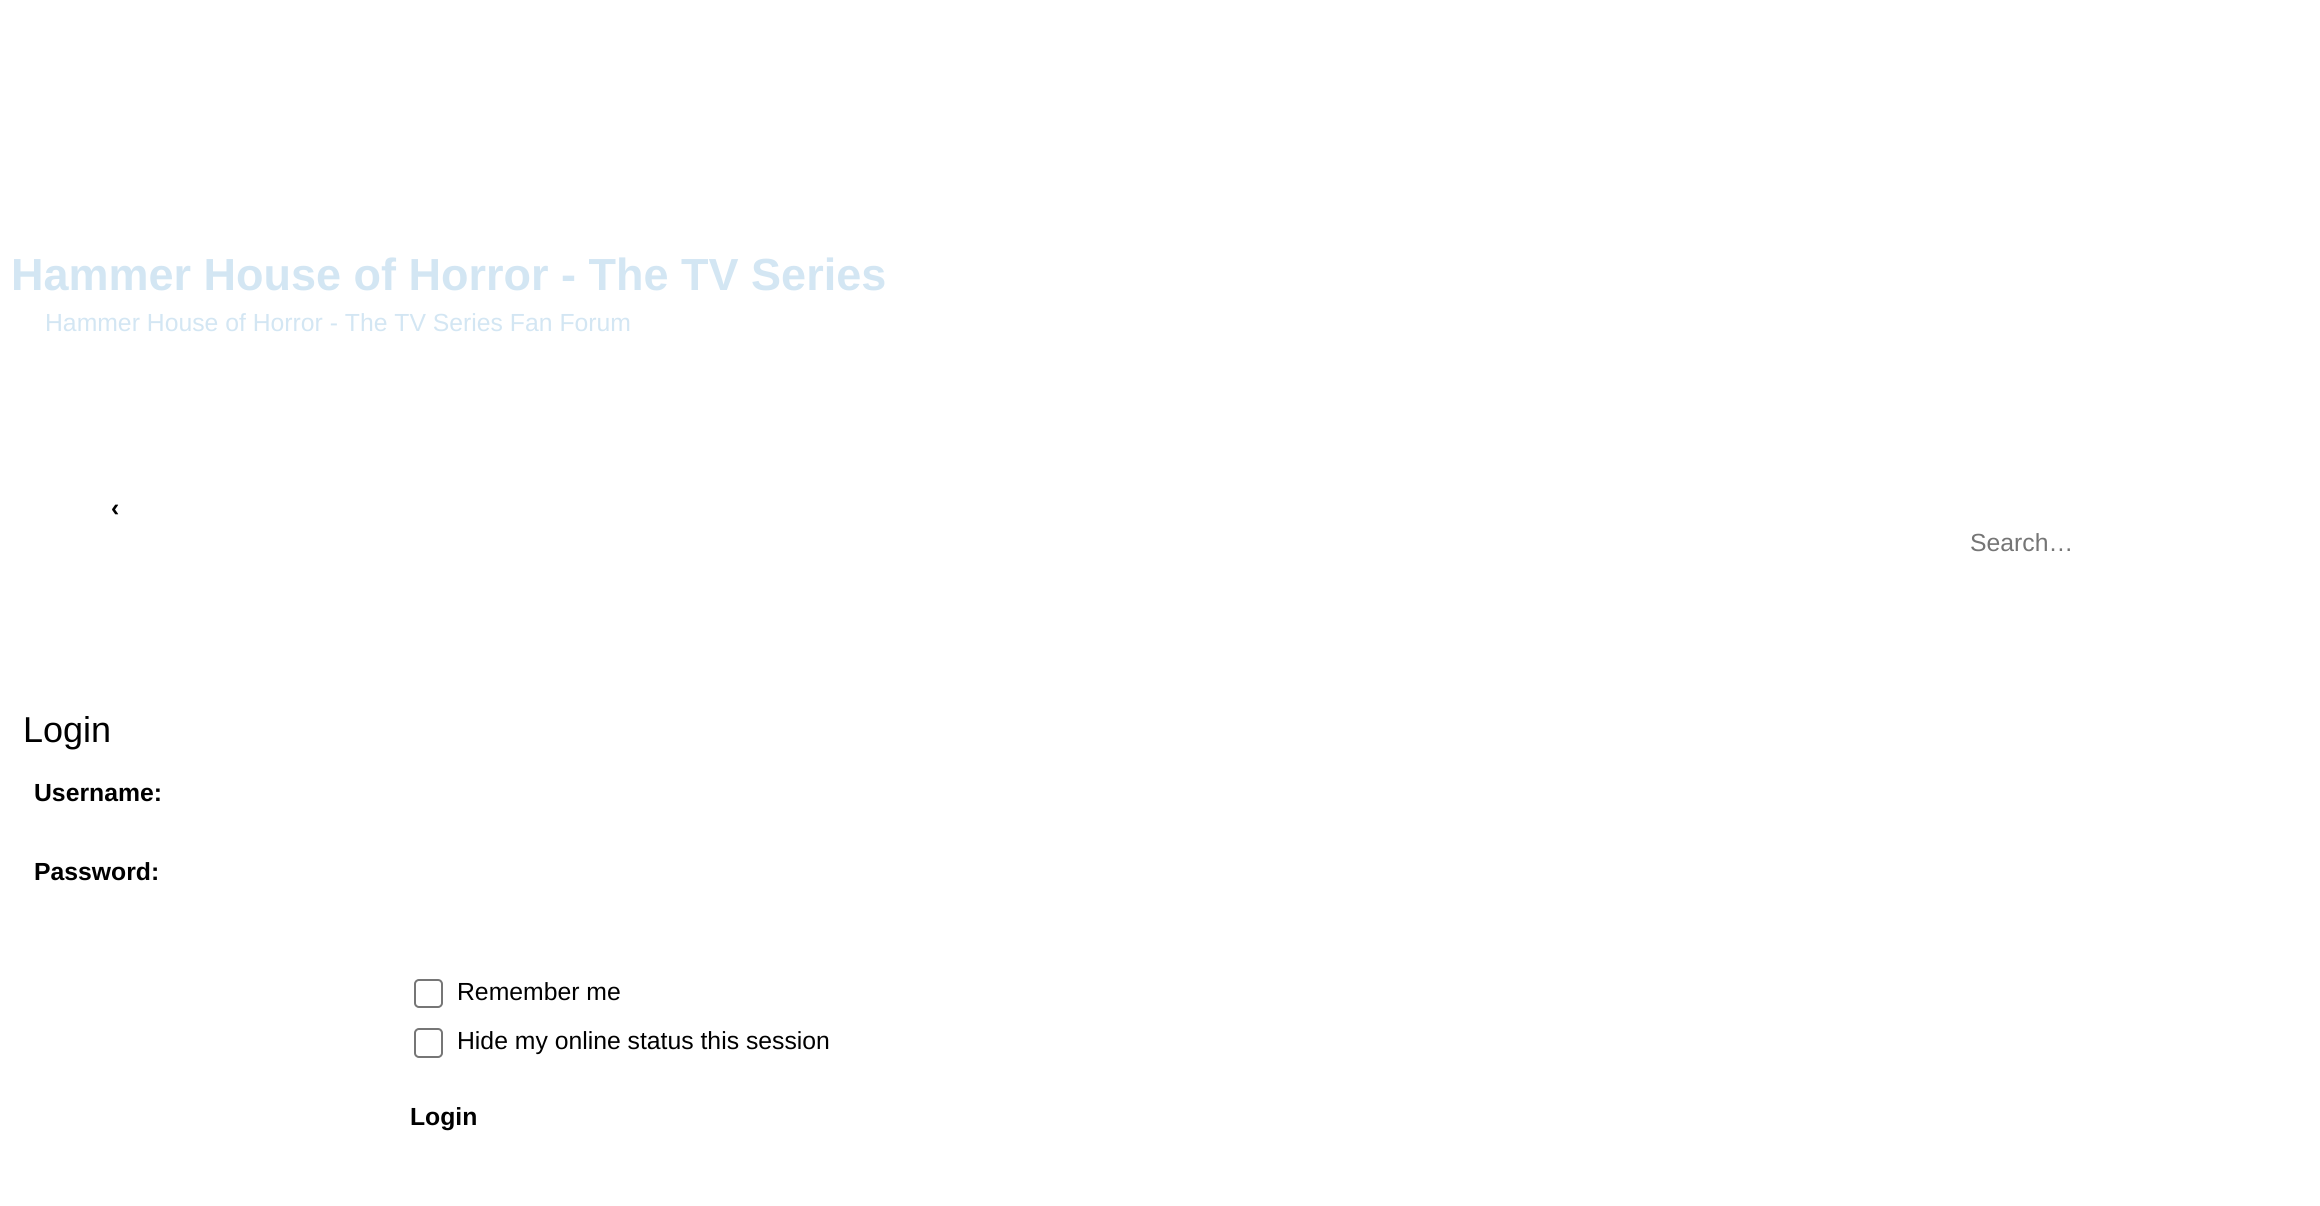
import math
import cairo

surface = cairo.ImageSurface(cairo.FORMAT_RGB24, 2320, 1206)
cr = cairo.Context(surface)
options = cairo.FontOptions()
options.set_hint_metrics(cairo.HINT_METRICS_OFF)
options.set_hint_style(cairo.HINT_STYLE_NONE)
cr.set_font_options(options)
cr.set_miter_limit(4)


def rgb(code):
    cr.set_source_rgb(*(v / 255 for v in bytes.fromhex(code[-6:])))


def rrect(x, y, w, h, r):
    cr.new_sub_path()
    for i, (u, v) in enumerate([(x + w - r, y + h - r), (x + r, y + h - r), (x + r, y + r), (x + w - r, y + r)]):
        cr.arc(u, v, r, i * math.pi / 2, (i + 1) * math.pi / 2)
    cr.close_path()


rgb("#ffffff")
cr.paint()
rrect(415, 980, 27, 27, 4)
rgb("#767676")
cr.stroke()
rrect(415, 1029, 27, 28, 4)
cr.stroke()
cr.select_font_face("Liberation Sans", cairo.FONT_SLANT_NORMAL, cairo.FONT_WEIGHT_BOLD)
cr.set_font_size(45)
rgb("#d3e6f3")
cr.move_to(11, 290)
cr.show_text("Hammer House of Horror - The TV Series")
cr.select_font_face("Liberation Sans")
cr.set_font_size(24.75)
cr.move_to(45, 331)
cr.show_text("Hammer House of Horror - The TV Series Fan Forum")
cr.select_font_face("Liberation Sans", cairo.FONT_SLANT_NORMAL, cairo.FONT_WEIGHT_BOLD)
rgb("#000000")
cr.move_to(111, 516)
cr.show_text("‹")
cr.select_font_face("Liberation Sans")
rgb("#757575")
cr.move_to(1970, 551)
cr.show_text("Search…")
cr.save()
cr.rectangle(23, 716, 2277, 445)
cr.clip()
cr.set_font_size(36)
rgb("#000000")
cr.move_to(23, 742)
cr.show_text("Login")
cr.restore()
cr.select_font_face("Liberation Sans", cairo.FONT_SLANT_NORMAL, cairo.FONT_WEIGHT_BOLD)
rgb("#000000")
cr.move_to(34, 801)
cr.show_text("Username:")
cr.move_to(34, 880)
cr.show_text("Password:")
cr.select_font_face("Liberation Sans")
cr.move_to(457, 1000)
cr.show_text("Remember me")
cr.move_to(457, 1049)
cr.show_text("Hide my online status this session")
cr.select_font_face("Liberation Sans", cairo.FONT_SLANT_NORMAL, cairo.FONT_WEIGHT_BOLD)
cr.move_to(410, 1125)
cr.show_text("Login")
surface.write_to_png("page.png")
